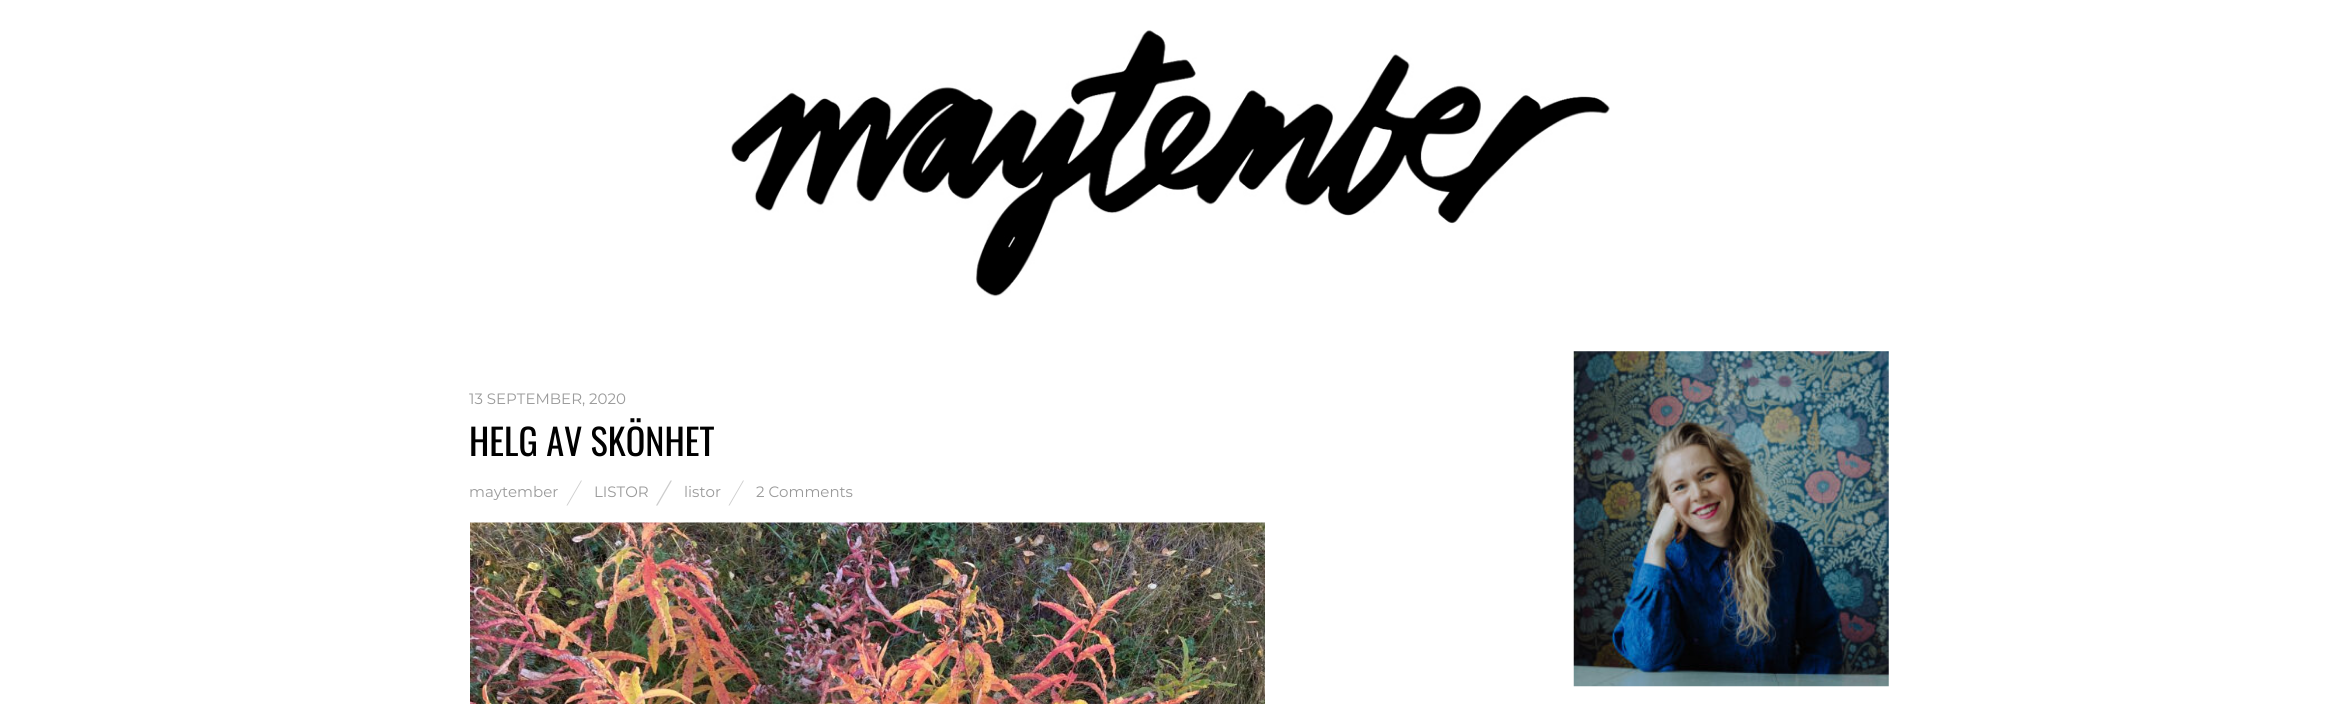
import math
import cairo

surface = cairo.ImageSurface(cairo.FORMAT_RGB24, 2326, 704)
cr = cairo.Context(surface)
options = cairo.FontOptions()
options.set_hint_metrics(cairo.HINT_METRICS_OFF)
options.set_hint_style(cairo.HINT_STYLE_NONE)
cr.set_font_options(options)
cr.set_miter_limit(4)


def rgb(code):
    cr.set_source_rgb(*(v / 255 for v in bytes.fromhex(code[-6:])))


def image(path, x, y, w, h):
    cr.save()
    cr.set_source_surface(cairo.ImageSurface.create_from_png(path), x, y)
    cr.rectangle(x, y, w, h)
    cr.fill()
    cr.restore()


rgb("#ffffff")
cr.paint()
image("img/1.png", 731, 30, 879, 267)
rgb("#cccccc")
cr.new_path()
cr.move_to(581, 480.5)
cr.line_to(582, 480.5)
cr.line_to(567.5, 505.5)
cr.line_to(566.5, 505.5)
cr.close_path()
cr.fill()
cr.new_path()
cr.move_to(670.5, 480.5)
cr.line_to(672, 480.5)
cr.line_to(657.5, 505.5)
cr.line_to(656, 505.5)
cr.close_path()
cr.fill()
cr.new_path()
cr.move_to(743, 480.5)
cr.line_to(744, 480.5)
cr.line_to(729.5, 505.5)
cr.line_to(728.5, 505.5)
cr.close_path()
cr.fill()
image("img/2.png", 470, 522, 795, 182)
image("img/3.png", 1573, 351, 316, 336)
cr.select_font_face("Montserrat Thin")
cr.set_font_size(15)
rgb("#999999")
cr.move_to(469, 404)
cr.show_text("13 SEPTEMBER, 2020")
cr.select_font_face("Oswald")
cr.set_font_size(36.25)
rgb("#000000")
cr.move_to(469, 456)
cr.show_text("HELG AV SKÖNHET")
cr.select_font_face("Montserrat Thin")
cr.set_font_size(15)
rgb("#999999")
for x, y, s in [
    (469, 497, "maytember"),
    (594, 497, "LISTOR"),
    (684, 497, "listor"),
    (756, 497, "2 Comments"),
]:
    cr.move_to(x, y)
    cr.show_text(s)
surface.write_to_png("page.png")
